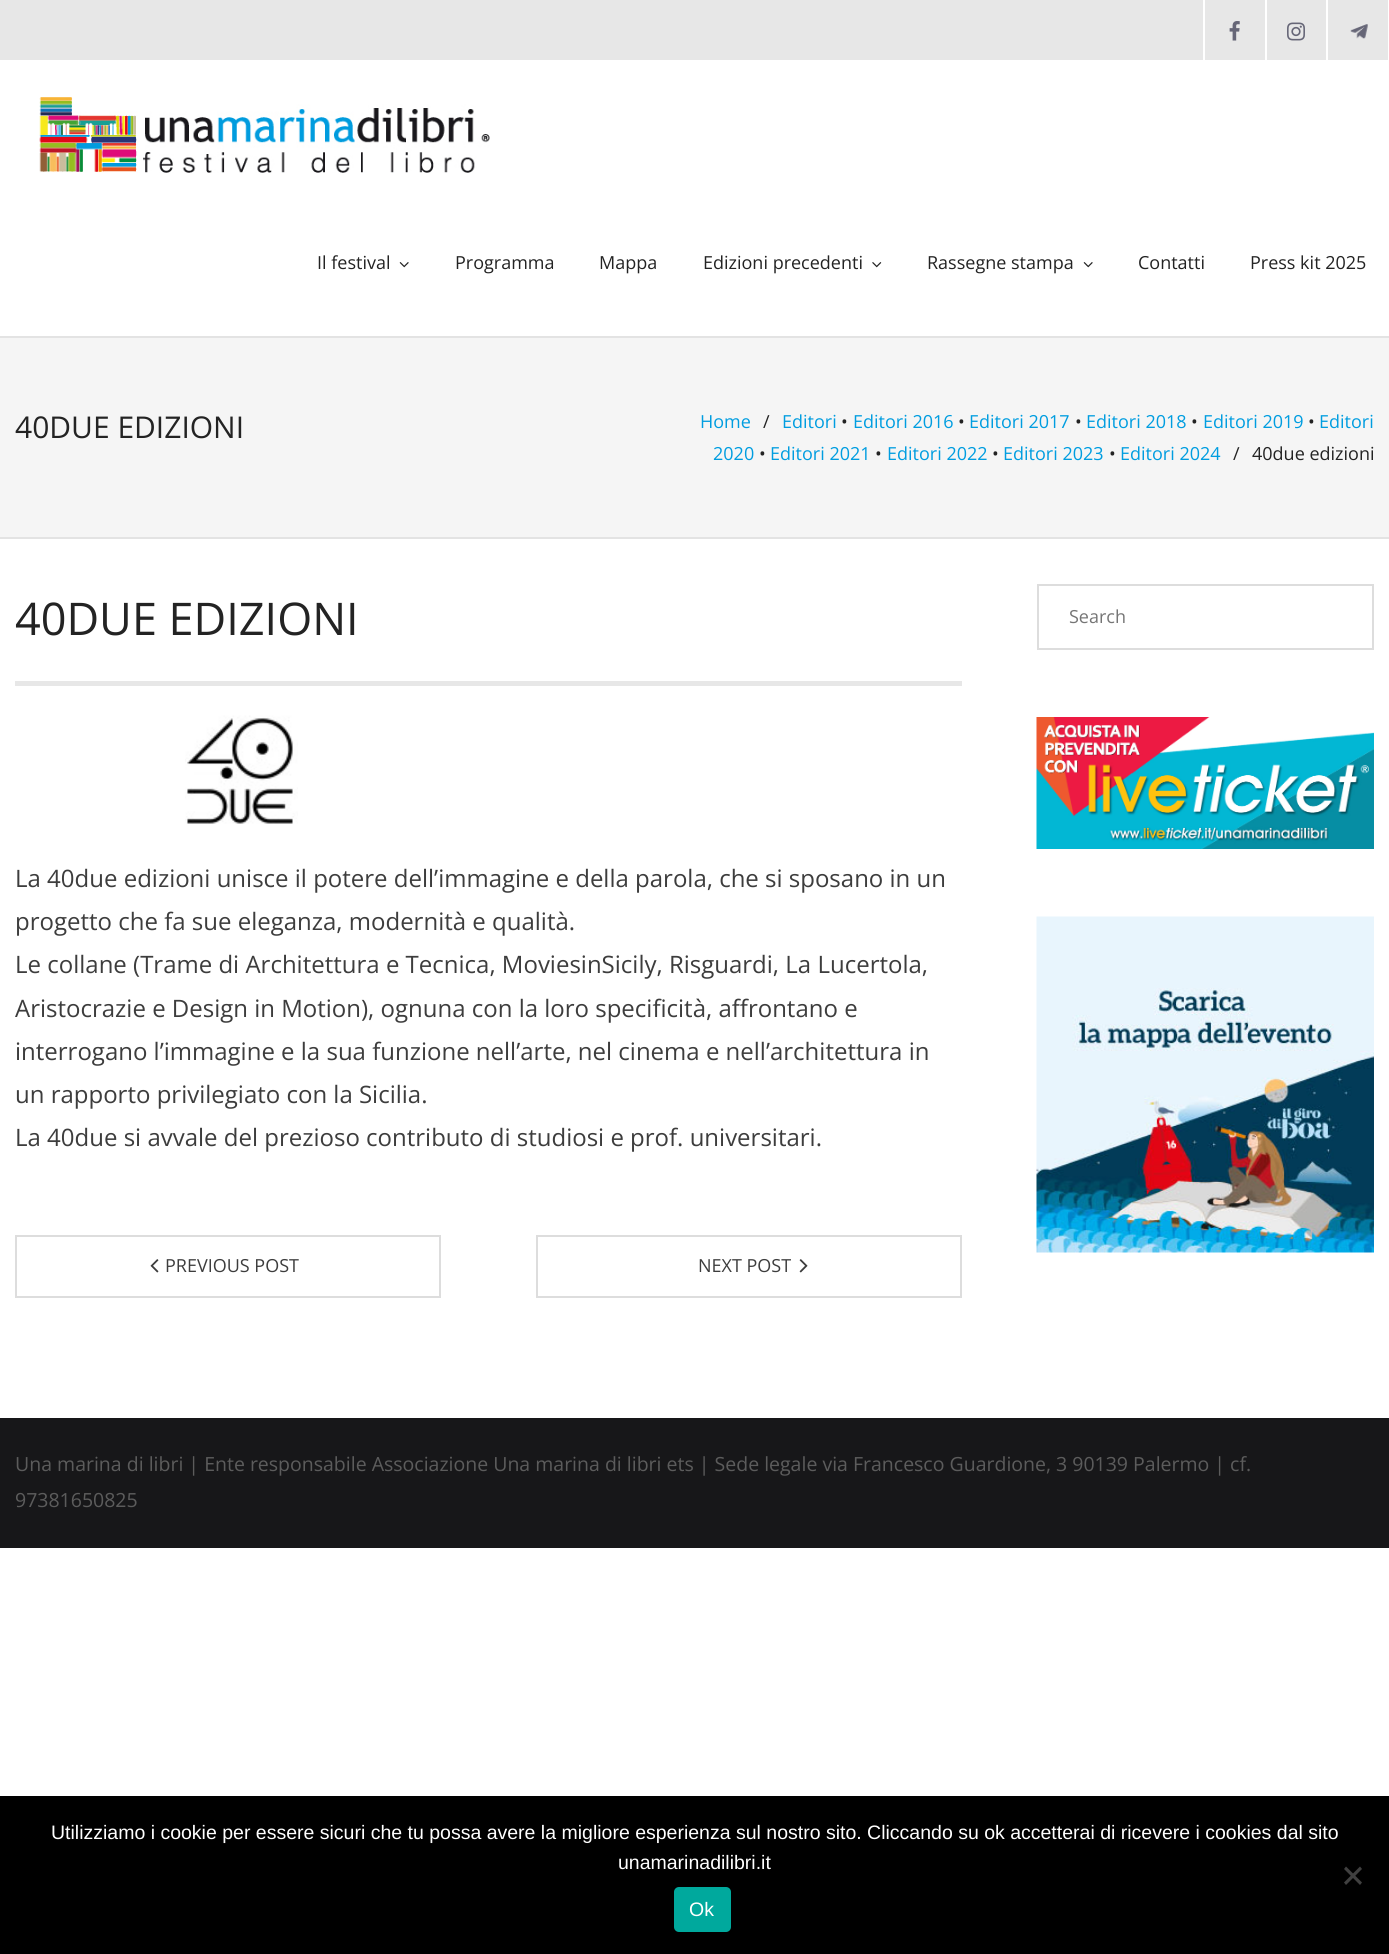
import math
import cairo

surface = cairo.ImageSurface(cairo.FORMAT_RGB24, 1389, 1954)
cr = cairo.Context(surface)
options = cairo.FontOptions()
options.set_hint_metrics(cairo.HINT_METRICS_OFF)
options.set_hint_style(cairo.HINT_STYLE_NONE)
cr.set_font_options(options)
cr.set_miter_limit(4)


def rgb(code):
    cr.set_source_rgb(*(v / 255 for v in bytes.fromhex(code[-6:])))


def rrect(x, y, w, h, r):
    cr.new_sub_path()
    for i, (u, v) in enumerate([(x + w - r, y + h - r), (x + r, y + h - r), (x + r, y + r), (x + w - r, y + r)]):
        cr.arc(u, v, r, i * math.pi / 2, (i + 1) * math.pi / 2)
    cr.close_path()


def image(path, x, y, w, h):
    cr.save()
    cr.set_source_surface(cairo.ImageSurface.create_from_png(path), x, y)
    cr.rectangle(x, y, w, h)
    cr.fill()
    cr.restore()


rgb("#ffffff")
cr.paint()
rgb("#e7e7e7")
cr.rectangle(0, 0, 1388, 60)
cr.fill()
rgb("#ffffff")
cr.rectangle(1203, 0, 2, 60)
cr.fill()
image("img/1.png", 1229, 21, 11, 20)
cr.rectangle(1265, 0, 2, 60)
cr.fill()
image("img/2.png", 1287, 22, 18, 19)
cr.rectangle(1326, 0, 2, 60)
cr.fill()
image("img/3.png", 1350, 24, 18, 15)
rgb("#e3e3e3")
cr.rectangle(0, 336, 1389, 2)
cr.fill()
image("img/4.png", 39, 97, 451, 76)
image("img/5.png", 399, 262, 10, 6)
image("img/6.png", 872, 262, 10, 6)
image("img/5.png", 1083, 262, 10, 6)
for x, y, w, h, color in [
    (0, 338, 1389, 199, "#f5f5f5"),
    (0, 537, 1389, 2, "#e3e3e3"),
    (15, 681, 947, 5, "#e7e7e7"),
]:
    rgb(color)
    cr.rectangle(x, y, w, h)
    cr.fill()
image("img/7.png", 185, 715, 113, 109)
cr.rectangle(16, 1236, 424, 61)
rgb("#dddddd")
cr.stroke()
image("img/8.png", 150, 1259, 9, 14)
cr.rectangle(537, 1236, 424, 61)
cr.stroke()
image("img/9.png", 799, 1259, 9, 14)
cr.rectangle(1038, 585, 335, 64)
cr.stroke()
image("img/10.png", 1036, 717, 338, 132)
image("img/11.png", 1036, 916, 338, 337)
rgb("#171719")
cr.rectangle(0, 1418, 1389, 130)
cr.fill()
rgb("#000000")
cr.rectangle(0, 1796, 1389, 158)
cr.fill()
rgb("#404040")
cr.new_path()
cr.move_to(1360, 1866.5)
cr.line_to(1362, 1869)
cr.line_to(1346, 1885)
cr.line_to(1344, 1882.5)
cr.close_path()
cr.fill()
cr.new_path()
cr.move_to(1344, 1869)
cr.line_to(1346, 1866.5)
cr.line_to(1362, 1882.5)
cr.line_to(1360, 1885)
cr.close_path()
cr.fill()
rgb("#00a99d")
rrect(674, 1887, 57, 45, 5)
cr.fill()
cr.select_font_face("Open Sans")
cr.set_font_size(18)
rgb("#232323")
for x, y, s in [
    (317, 269, "Il festival"),
    (455, 269, "Programma"),
    (599, 269, "Mappa"),
    (703, 269, "Edizioni precedenti"),
    (927, 269, "Rassegne stampa"),
    (1138, 269, "Contatti"),
    (1250, 269, "Press kit 2025"),
]:
    cr.move_to(x, y)
    cr.show_text(s)
cr.set_font_size(30)
cr.move_to(15, 438)
cr.show_text("40DUE EDIZIONI")
cr.set_font_size(18)
rgb("#009de0")
cr.move_to(700, 428)
cr.show_text("Home")
rgb("#232323")
cr.move_to(763, 428)
cr.show_text("/")
rgb("#009de0")
cr.move_to(782, 428)
cr.show_text("Editori")
rgb("#232323")
cr.move_to(841, 428)
cr.show_text("•")
rgb("#009de0")
cr.move_to(853, 428)
cr.show_text("Editori 2016")
rgb("#232323")
cr.move_to(958, 428)
cr.show_text("•")
rgb("#009de0")
cr.move_to(969, 428)
cr.show_text("Editori 2017")
rgb("#232323")
cr.move_to(1075, 428)
cr.show_text("•")
rgb("#009de0")
cr.move_to(1086, 428)
cr.show_text("Editori 2018")
rgb("#232323")
cr.move_to(1191, 428)
cr.show_text("•")
rgb("#009de0")
cr.move_to(1203, 428)
cr.show_text("Editori 2019")
rgb("#232323")
cr.move_to(1308, 428)
cr.show_text("•")
rgb("#009de0")
cr.move_to(1319, 428)
cr.show_text("Editori")
cr.move_to(713, 460)
cr.show_text("2020")
rgb("#232323")
cr.move_to(759, 460)
cr.show_text("•")
rgb("#009de0")
cr.move_to(770, 460)
cr.show_text("Editori 2021")
rgb("#232323")
cr.move_to(875, 460)
cr.show_text("•")
rgb("#009de0")
cr.move_to(887, 460)
cr.show_text("Editori 2022")
rgb("#232323")
cr.move_to(992, 460)
cr.show_text("•")
rgb("#009de0")
cr.move_to(1003, 460)
cr.show_text("Editori 2023")
rgb("#232323")
cr.move_to(1109, 460)
cr.show_text("•")
rgb("#009de0")
cr.move_to(1120, 460)
cr.show_text("Editori 2024")
rgb("#232323")
cr.move_to(1233, 460)
cr.show_text("/")
cr.move_to(1252, 460)
cr.show_text("40due edizioni")
cr.set_font_size(45)
cr.move_to(15, 635)
cr.show_text("40DUE EDIZIONI")
cr.set_font_size(24)
rgb("#3d3d3d")
for x, y, s in [
    (15, 887, "La 40due edizioni unisce il potere dell’immagine e della parola, che si sposano in un"),
    (15, 930, "progetto che fa sue eleganza, modernità e qualità."),
    (15, 973, "Le collane (Trame di Architettura e Tecnica, MoviesinSicily, Risguardi, La Lucertola,"),
    (15, 1017, "Aristocrazie e Design in Motion), ognuna con la loro specificità, affrontano e"),
    (15, 1060, "interrogano l’immagine e la sua funzione nell’arte, nel cinema e nell’architettura in"),
    (15, 1103, "un rapporto privilegiato con la Sicilia."),
    (15, 1146, "La 40due si avvale del prezioso contributo di studiosi e prof. universitari."),
]:
    cr.move_to(x, y)
    cr.show_text(s)
cr.set_font_size(18)
cr.move_to(165, 1272)
cr.show_text("PREVIOUS POST")
cr.move_to(698, 1272)
cr.show_text("NEXT POST")
rgb("#757575")
cr.move_to(1069, 623)
cr.show_text("Search")
cr.set_font_size(19.5)
rgb("#5c5c5c")
cr.move_to(15, 1471)
cr.show_text("Una marina di libri | Ente responsabile Associazione Una marina di libri ets | Sede legale via Francesco Guardione, 3 90139 Palermo | cf.")
cr.move_to(15, 1507)
cr.show_text("97381650825")
cr.select_font_face("Liberation Sans")
rgb("#ffffff")
for x, y, s in [
    (51, 1839, "Utilizziamo i cookie per essere sicuri che tu possa avere la migliore esperienza sul nostro sito. Cliccando su ok accetterai di ricevere i cookies dal sito"),
    (618, 1869, "unamarinadilibri.it"),
    (689, 1916, "Ok"),
]:
    cr.move_to(x, y)
    cr.show_text(s)
surface.write_to_png("page.png")
